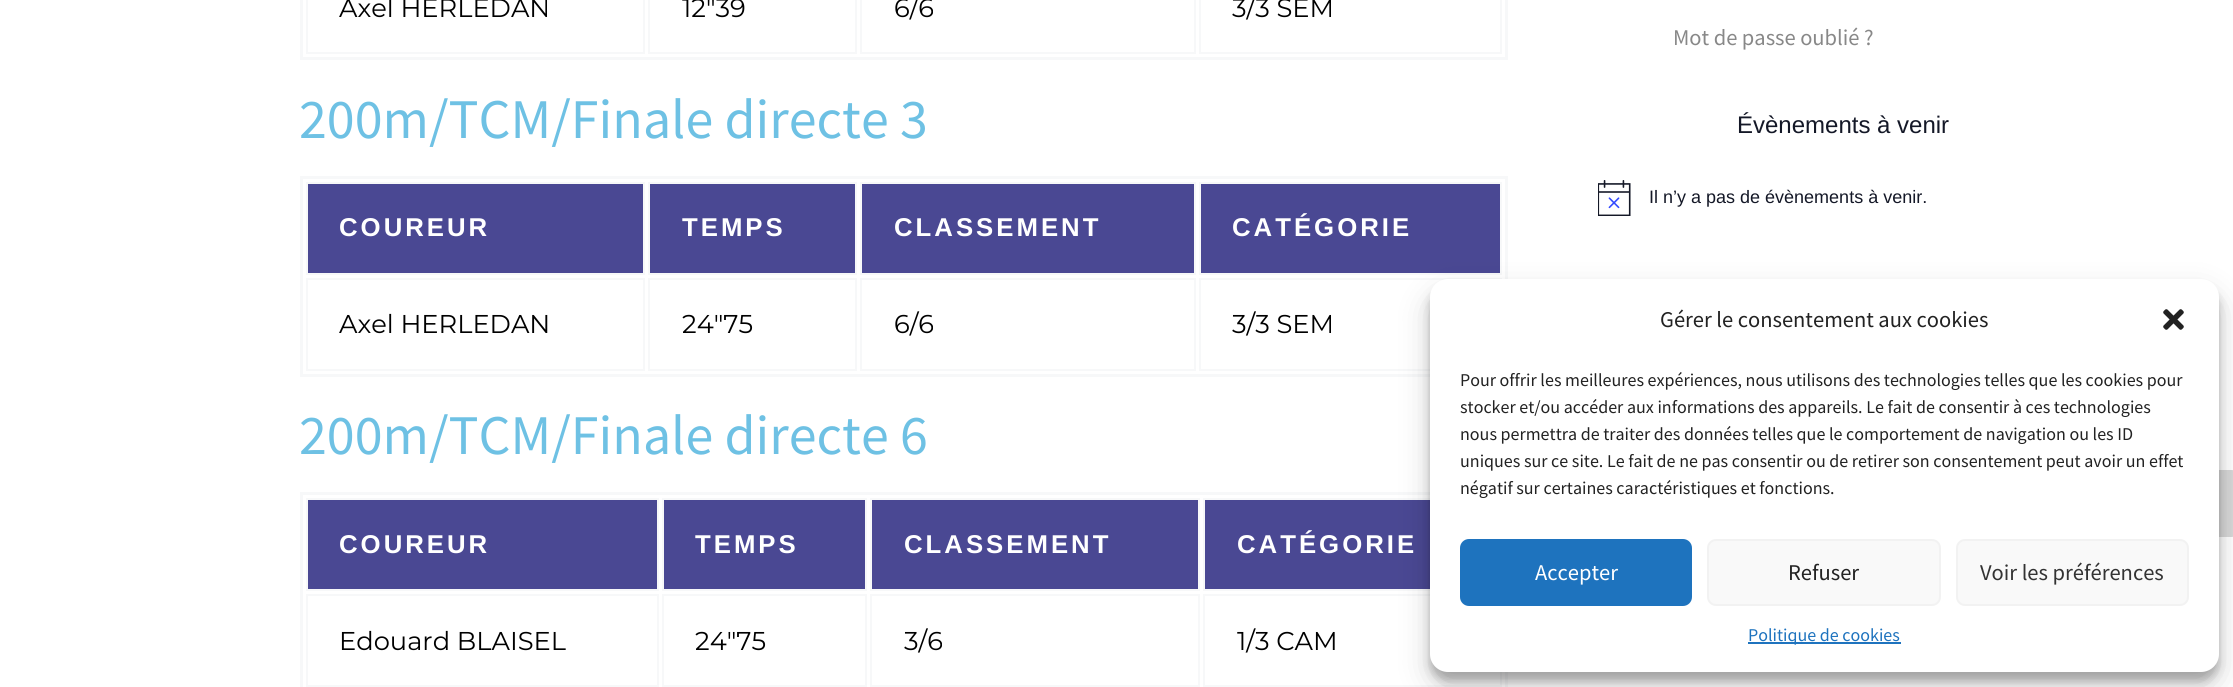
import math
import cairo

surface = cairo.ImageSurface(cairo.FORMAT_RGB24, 2233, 687)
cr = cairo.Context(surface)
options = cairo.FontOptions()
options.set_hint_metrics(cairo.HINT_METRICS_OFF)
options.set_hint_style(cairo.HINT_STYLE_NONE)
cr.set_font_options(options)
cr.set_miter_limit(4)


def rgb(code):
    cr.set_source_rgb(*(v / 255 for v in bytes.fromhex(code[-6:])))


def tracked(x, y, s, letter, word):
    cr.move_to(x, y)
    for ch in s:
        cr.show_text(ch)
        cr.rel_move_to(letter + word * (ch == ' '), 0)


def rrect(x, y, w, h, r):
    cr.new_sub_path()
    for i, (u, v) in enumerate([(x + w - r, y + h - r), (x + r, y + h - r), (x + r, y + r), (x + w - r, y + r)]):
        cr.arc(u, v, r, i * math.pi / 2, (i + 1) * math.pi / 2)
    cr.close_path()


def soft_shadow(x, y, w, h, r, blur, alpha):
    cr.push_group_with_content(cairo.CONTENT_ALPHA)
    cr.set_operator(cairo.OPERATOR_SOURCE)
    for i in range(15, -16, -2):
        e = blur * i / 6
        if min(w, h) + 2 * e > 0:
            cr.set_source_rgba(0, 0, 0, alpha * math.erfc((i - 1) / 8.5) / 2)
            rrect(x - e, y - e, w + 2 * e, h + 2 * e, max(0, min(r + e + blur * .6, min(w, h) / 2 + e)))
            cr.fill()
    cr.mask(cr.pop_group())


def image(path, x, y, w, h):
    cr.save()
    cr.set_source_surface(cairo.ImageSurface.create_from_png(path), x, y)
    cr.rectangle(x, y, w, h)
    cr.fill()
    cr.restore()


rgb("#ffffff")
cr.paint()
cr.rectangle(301.5, -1.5, 1205, 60)
rgb("#f7f8f9")
cr.set_line_width(3)
cr.stroke()
cr.rectangle(307, -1, 337, 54)
cr.set_line_width(2)
cr.stroke()
cr.rectangle(649, -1, 207, 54)
cr.stroke()
cr.rectangle(861, -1, 334, 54)
cr.stroke()
cr.rectangle(1200, -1, 301, 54)
cr.stroke()
cr.rectangle(301.5, 177.5, 1205, 198)
cr.set_line_width(3)
cr.stroke()
rgb("#4a4893")
cr.rectangle(307, 183, 337, 91)
cr.fill_preserve()
rgb("#f7f8f9")
cr.set_line_width(2)
cr.stroke()
rgb("#4a4893")
cr.rectangle(649, 183, 207, 91)
cr.fill_preserve()
rgb("#f7f8f9")
cr.stroke()
rgb("#4a4893")
cr.rectangle(861, 183, 334, 91)
cr.fill_preserve()
rgb("#f7f8f9")
cr.stroke()
rgb("#4a4893")
cr.rectangle(1200, 183, 301, 91)
cr.fill_preserve()
rgb("#f7f8f9")
cr.stroke()
cr.rectangle(307, 279, 337, 91)
cr.stroke()
cr.rectangle(649, 279, 207, 91)
cr.stroke()
cr.rectangle(861, 279, 334, 91)
cr.stroke()
cr.rectangle(1200, 279, 301, 91)
cr.stroke()
cr.rectangle(301.5, 493.5, 1205, 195)
cr.set_line_width(3)
cr.stroke()
rgb("#4a4893")
cr.rectangle(307, 499, 351, 91)
cr.fill_preserve()
rgb("#f7f8f9")
cr.set_line_width(2)
cr.stroke()
rgb("#4a4893")
cr.rectangle(663, 499, 203, 91)
cr.fill_preserve()
rgb("#f7f8f9")
cr.stroke()
rgb("#4a4893")
cr.rectangle(871, 499, 328, 91)
cr.fill_preserve()
rgb("#f7f8f9")
cr.stroke()
rgb("#4a4893")
cr.rectangle(1205, 500, 225, 89)
cr.fill()
cr.rectangle(1204, 499, 297, 91)
rgb("#f7f8f9")
cr.stroke()
cr.rectangle(307, 595, 351, 91)
cr.stroke()
cr.rectangle(663, 595, 203, 91)
cr.stroke()
cr.rectangle(871, 595, 328, 91)
cr.stroke()
cr.rectangle(1204, 595, 297, 91)
cr.stroke()
image("img/1.png", 1598, 180, 33, 36)
rgb("#d8d8d8")
rrect(2166, 470, 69, 67, 3)
cr.fill()
rgb("#000000")
soft_shadow(1430, 288, 789, 393, 18, 4.5, 0.23)
soft_shadow(1430, 294, 789, 393, 18, 15, 0.19)
rgb("#ffffff")
rrect(1430, 279, 789, 393, 18)
cr.fill()
image("img/2.png", 2163, 309, 21, 21)
rgb("#1e73be")
rrect(1461, 540, 230, 65, 8)
cr.fill_preserve()
cr.stroke()
rgb("#f9f9f9")
rrect(1708, 540, 232, 65, 8)
cr.fill_preserve()
rgb("#f2f2f2")
cr.stroke()
rgb("#f9f9f9")
rrect(1957, 540, 231, 65, 8)
cr.fill_preserve()
rgb("#f2f2f2")
cr.stroke()
rgb("#1e73be")
cr.rectangle(1748, 642, 153, 2)
cr.fill()
cr.select_font_face("Montserrat")
cr.set_font_size(25.75)
rgb("#000000")
for x, y, s in [
    (339, 17, "Axel HERLEDAN"),
    (682, 17, "12\"39"),
    (894, 17, "6/6"),
    (1232, 17, "3/3 SEM"),
]:
    cr.move_to(x, y)
    cr.show_text(s)
cr.select_font_face("Source Sans Pro")
cr.set_font_size(56)
rgb("#6ec1e4")
cr.move_to(299, 138)
cr.show_text("200m/TCM/Finale directe 3")
cr.select_font_face("Liberation Sans", cairo.FONT_SLANT_NORMAL, cairo.FONT_WEIGHT_BOLD)
cr.set_font_size(25.75)
rgb("#ffffff")
for x, y, s in [
    (339, 236, "COUREUR"),
    (682, 236, "TEMPS"),
    (894, 236, "CLASSEMENT"),
    (1232, 236, "CATÉGORIE"),
]:
    tracked(x, y, s, 3, 0)
cr.select_font_face("Montserrat")
rgb("#000000")
for x, y, s in [
    (339, 333, "Axel HERLEDAN"),
    (682, 333, "24\"75"),
    (894, 333, "6/6"),
    (1232, 333, "3/3 SEM"),
]:
    cr.move_to(x, y)
    cr.show_text(s)
cr.select_font_face("Source Sans Pro")
cr.set_font_size(56)
rgb("#6ec1e4")
cr.move_to(299, 454)
cr.show_text("200m/TCM/Finale directe 6")
cr.select_font_face("Liberation Sans", cairo.FONT_SLANT_NORMAL, cairo.FONT_WEIGHT_BOLD)
cr.set_font_size(25.75)
rgb("#ffffff")
for x, y, s in [
    (339, 553, "COUREUR"),
    (695, 553, "TEMPS"),
    (904, 553, "CLASSEMENT"),
    (1237, 553, "CATÉGORIE"),
]:
    tracked(x, y, s, 3, 0)
cr.select_font_face("Montserrat")
rgb("#000000")
for x, y, s in [
    (339, 650, "Edouard BLAISEL"),
    (695, 650, "24\"75"),
    (904, 650, "3/6"),
    (1237, 650, "1/3 CAM"),
]:
    cr.move_to(x, y)
    cr.show_text(s)
cr.select_font_face("Source Sans Pro")
cr.set_font_size(22.5)
rgb("#888888")
cr.move_to(1673, 45)
cr.show_text("Mot de passe oublié ?")
cr.select_font_face("Liberation Sans")
cr.set_font_size(24)
rgb("#141827")
cr.move_to(1737, 133)
cr.show_text("Évènements à venir")
cr.set_font_size(18)
cr.move_to(1649, 203)
cr.show_text("Il n’y a pas de évènements à venir.")
cr.select_font_face("Source Sans Pro")
cr.set_font_size(22.5)
rgb("#222222")
cr.move_to(1660, 327)
cr.show_text("Gérer le consentement aux cookies")
cr.set_font_size(18)
for x, y, s in [
    (1460, 386, "Pour offrir les meilleures expériences, nous utilisons des technologies telles que les cookies pour"),
    (1460, 413, "stocker et/ou accéder aux informations des appareils. Le fait de consentir à ces technologies"),
    (1460, 440, "nous permettra de traiter des données telles que le comportement de navigation ou les ID"),
    (1460, 467, "uniques sur ce site. Le fait de ne pas consentir ou de retirer son consentement peut avoir un effet"),
    (1460, 494, "négatif sur certaines caractéristiques et fonctions."),
]:
    cr.move_to(x, y)
    cr.show_text(s)
cr.set_font_size(22.5)
rgb("#ffffff")
cr.move_to(1535, 580)
cr.show_text("Accepter")
rgb("#222222")
cr.move_to(1788, 580)
cr.show_text("Refuser")
rgb("#333333")
cr.move_to(1980, 580)
cr.show_text("Voir les préférences")
cr.set_font_size(18)
rgb("#1e73be")
cr.move_to(1748, 641)
cr.show_text("Politique de cookies")
surface.write_to_png("page.png")
